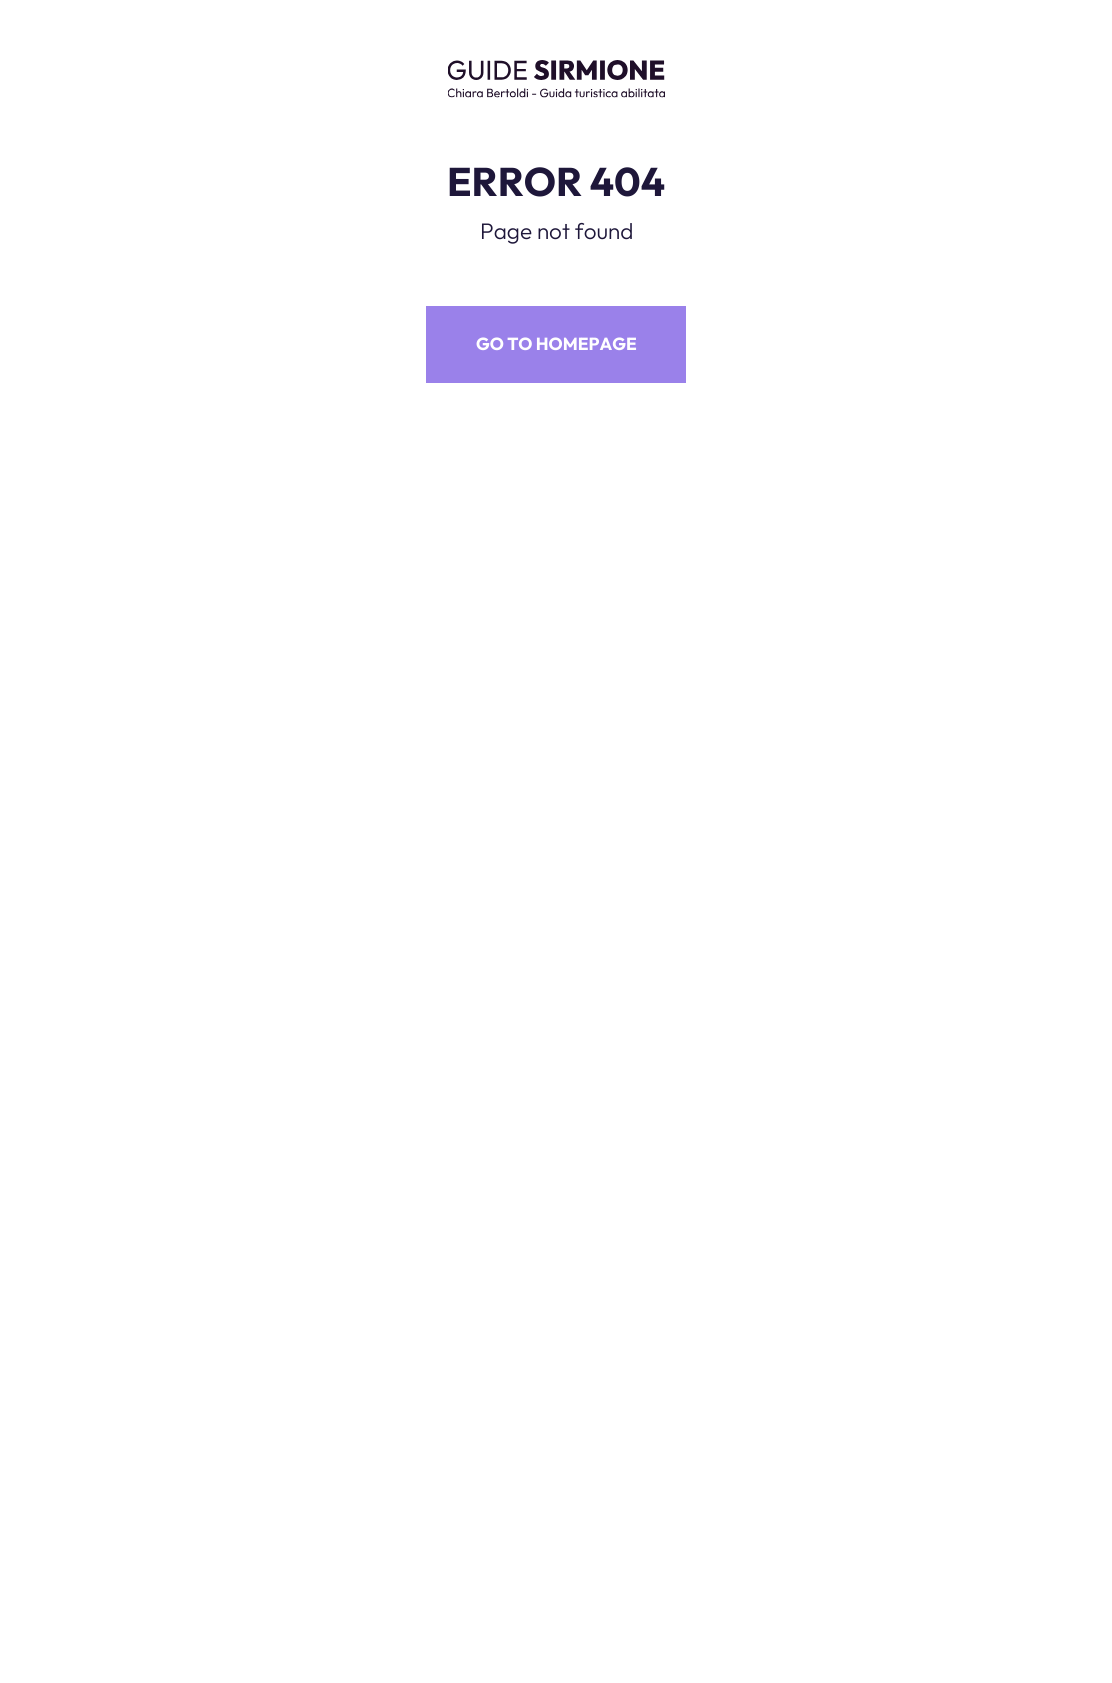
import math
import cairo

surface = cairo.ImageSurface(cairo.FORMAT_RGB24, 1112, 1683)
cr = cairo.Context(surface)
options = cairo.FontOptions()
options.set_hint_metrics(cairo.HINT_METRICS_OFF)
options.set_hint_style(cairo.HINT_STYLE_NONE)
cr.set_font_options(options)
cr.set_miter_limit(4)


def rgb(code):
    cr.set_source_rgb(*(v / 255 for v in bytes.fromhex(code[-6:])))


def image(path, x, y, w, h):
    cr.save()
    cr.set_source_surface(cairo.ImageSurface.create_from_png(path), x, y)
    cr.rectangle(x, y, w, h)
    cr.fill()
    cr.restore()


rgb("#ffffff")
cr.paint()
image("img/1.png", 448, 60, 217, 38)
rgb("#9a81ea")
cr.rectangle(426, 306, 260, 77)
cr.fill()
cr.select_font_face("Outfit", cairo.FONT_SLANT_NORMAL, cairo.FONT_WEIGHT_BOLD)
cr.set_font_size(40)
rgb("#1e173a")
cr.move_to(447, 196)
cr.show_text("ERROR 404")
cr.select_font_face("Outfit Light")
cr.set_font_size(22.5)
cr.move_to(480, 239)
cr.show_text("Page not found")
cr.select_font_face("Outfit", cairo.FONT_SLANT_NORMAL, cairo.FONT_WEIGHT_BOLD)
cr.set_font_size(17.5)
rgb("#ffffff")
cr.move_to(476, 350)
cr.show_text("GO TO HOMEPAGE")
surface.write_to_png("page.png")
